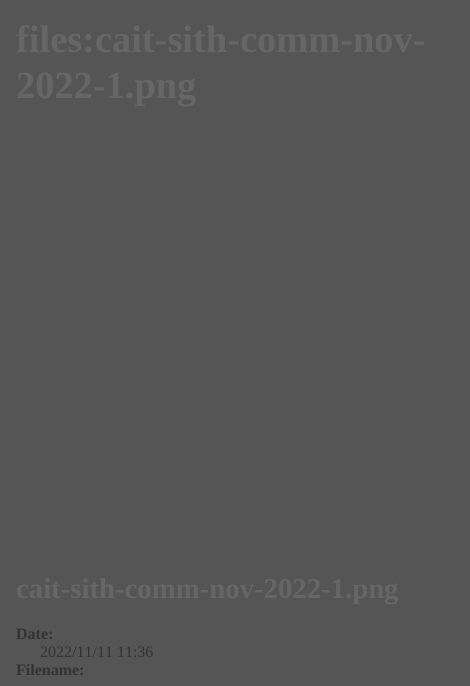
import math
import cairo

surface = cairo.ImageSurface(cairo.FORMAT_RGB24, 470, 686)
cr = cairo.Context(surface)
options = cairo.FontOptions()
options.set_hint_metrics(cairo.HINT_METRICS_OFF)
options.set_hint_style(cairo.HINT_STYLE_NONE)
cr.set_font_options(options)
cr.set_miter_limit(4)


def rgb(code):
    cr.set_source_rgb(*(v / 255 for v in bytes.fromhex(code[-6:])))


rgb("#555555")
cr.paint()
cr.select_font_face("Liberation Serif", cairo.FONT_SLANT_NORMAL, cairo.FONT_WEIGHT_BOLD)
cr.set_font_size(38.4)
rgb("#666666")
cr.move_to(16, 52)
cr.show_text("files:cait-sith-comm-nov-")
cr.move_to(16, 98)
cr.show_text("2022-1.png")
cr.set_font_size(28.75)
cr.move_to(16, 598)
cr.show_text("cait-sith-comm-nov-2022-1.png")
cr.set_font_size(16)
rgb("#333333")
cr.move_to(16, 639)
cr.show_text("Date:")
cr.select_font_face("Liberation Serif")
cr.move_to(40, 657)
cr.show_text("2022/11/11 11:36")
cr.select_font_face("Liberation Serif", cairo.FONT_SLANT_NORMAL, cairo.FONT_WEIGHT_BOLD)
cr.move_to(16, 675)
cr.show_text("Filename:")
surface.write_to_png("page.png")
